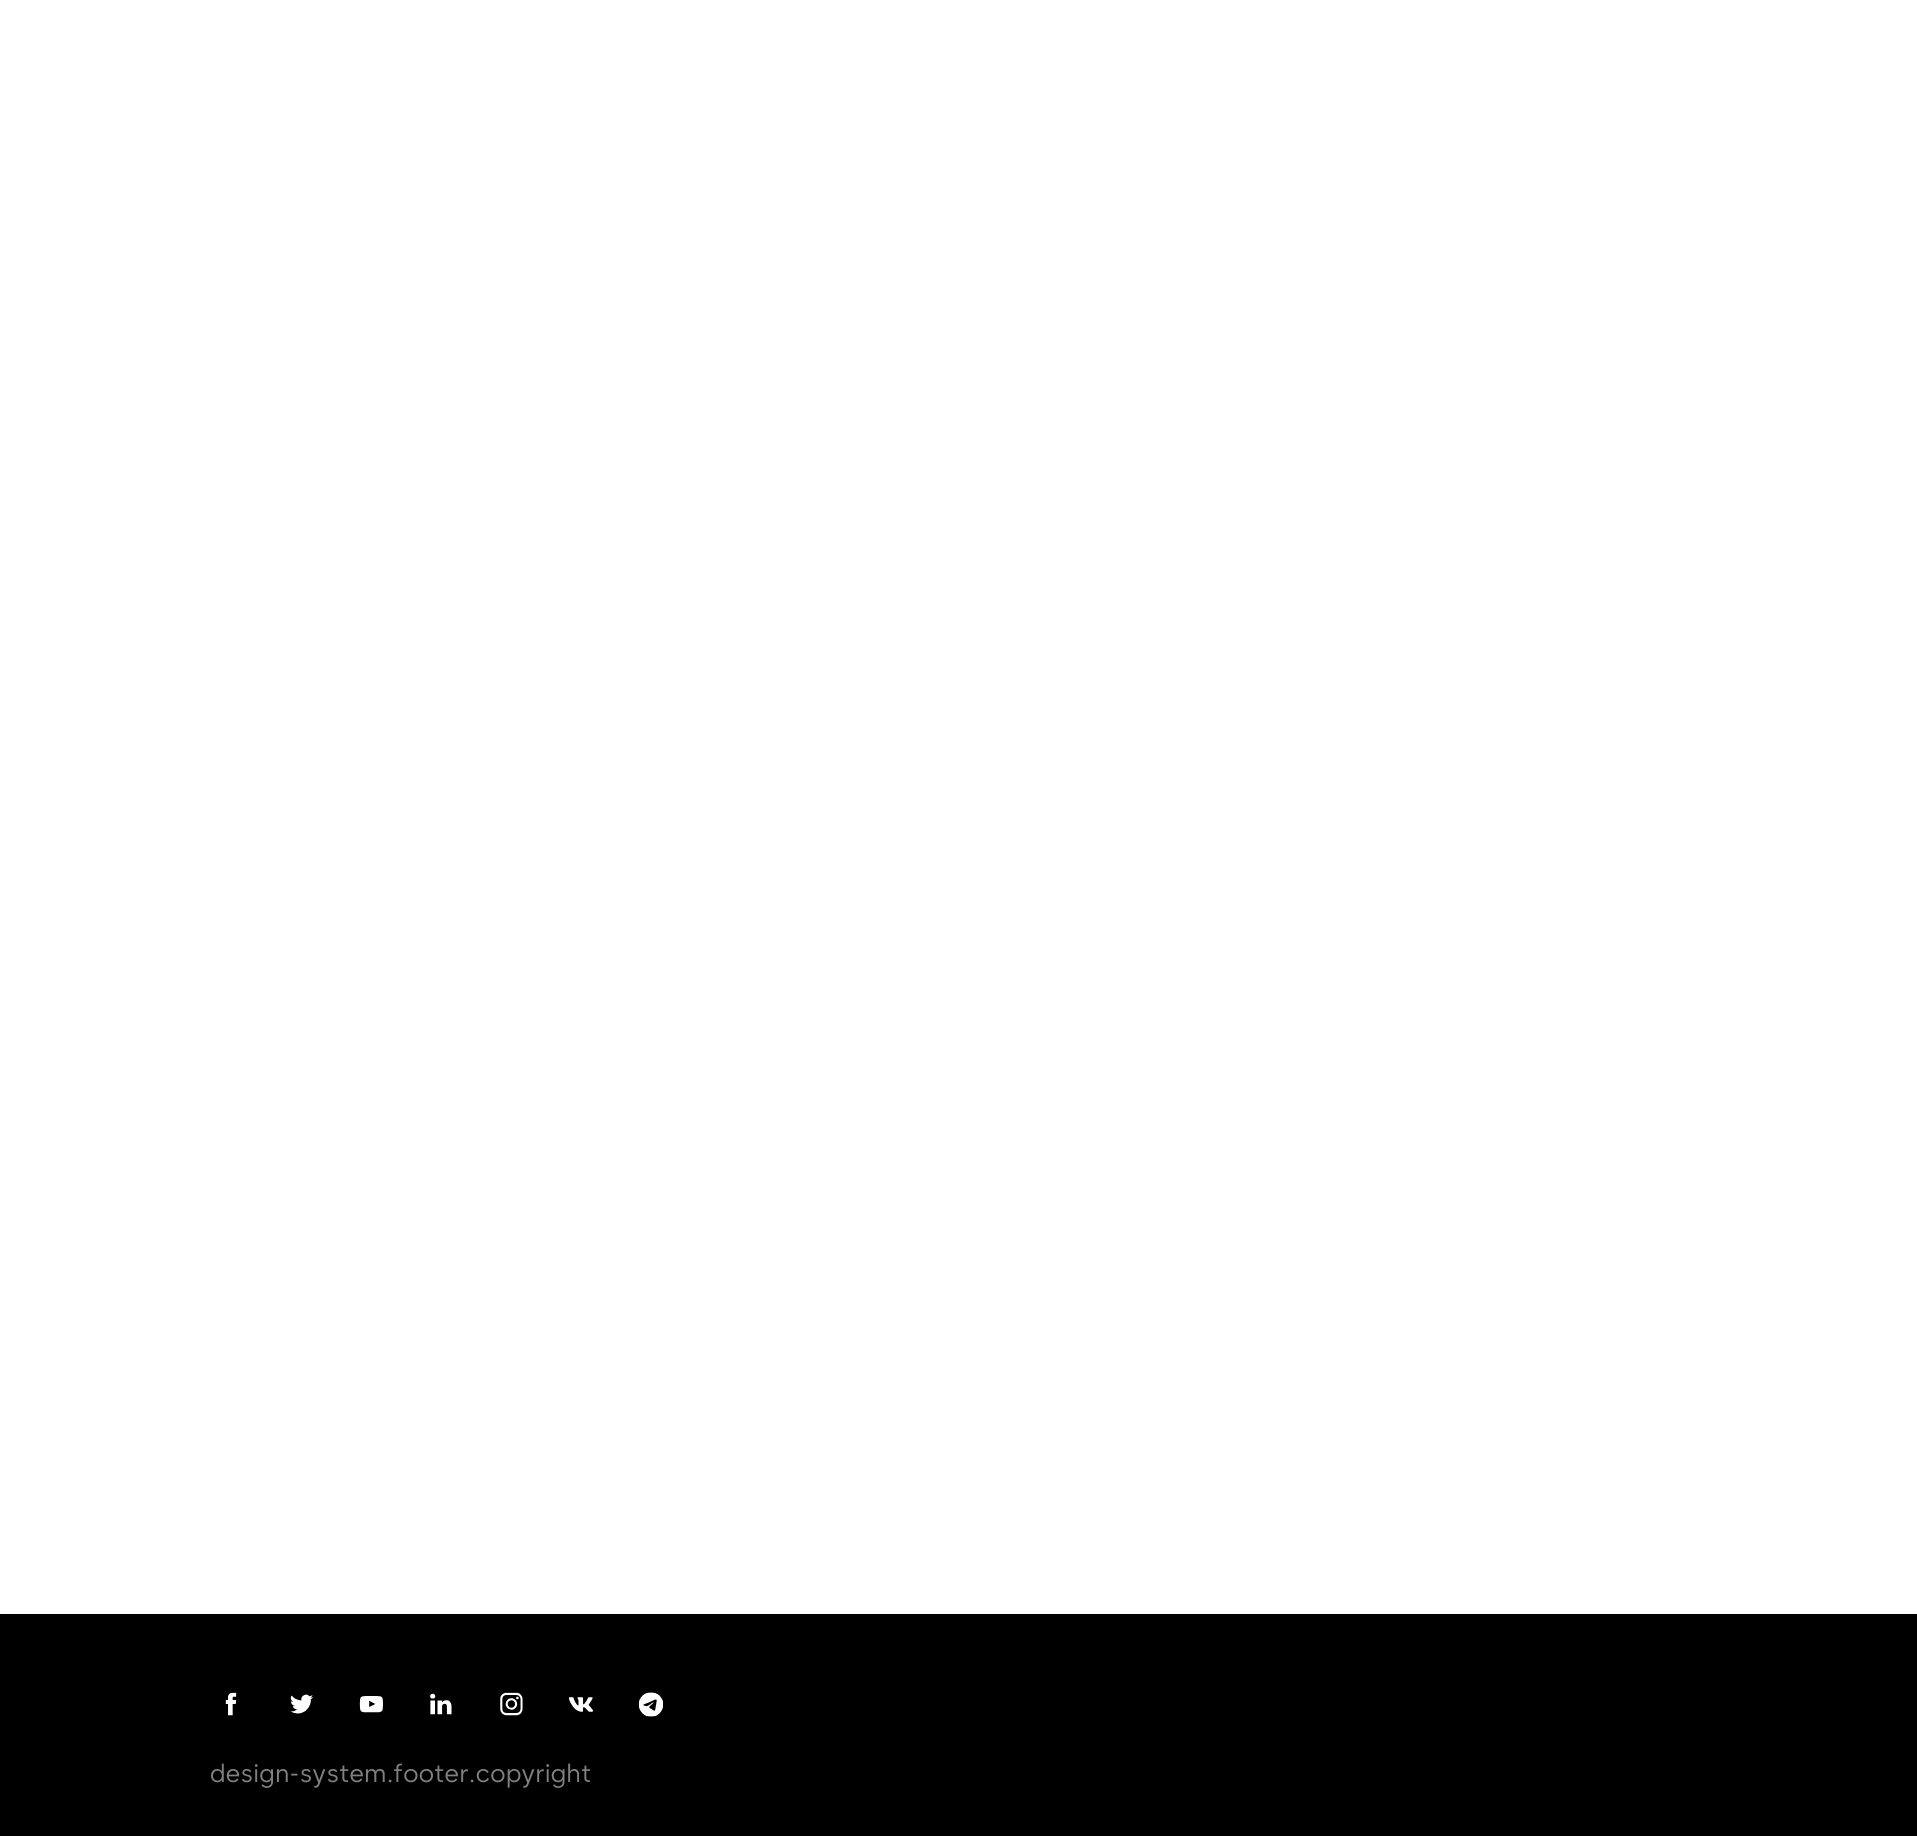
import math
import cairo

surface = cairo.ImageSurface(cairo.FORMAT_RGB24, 1917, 1836)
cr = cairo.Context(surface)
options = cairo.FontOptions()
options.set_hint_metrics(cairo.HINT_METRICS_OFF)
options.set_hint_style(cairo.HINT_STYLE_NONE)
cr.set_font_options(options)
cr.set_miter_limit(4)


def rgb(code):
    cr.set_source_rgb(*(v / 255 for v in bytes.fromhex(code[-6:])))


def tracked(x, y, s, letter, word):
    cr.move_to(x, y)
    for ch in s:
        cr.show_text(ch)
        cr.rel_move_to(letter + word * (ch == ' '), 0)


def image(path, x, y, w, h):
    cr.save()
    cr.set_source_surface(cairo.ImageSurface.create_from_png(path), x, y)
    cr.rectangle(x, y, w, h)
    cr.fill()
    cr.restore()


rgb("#ffffff")
cr.paint()
rgb("#000000")
cr.rectangle(0, 1614, 1917, 222)
cr.fill()
image("img/1.png", 225, 1692, 12, 24)
image("img/2.png", 290, 1694, 23, 20)
image("img/3.png", 359, 1696, 24, 17)
image("img/4.png", 430, 1693, 22, 22)
image("img/5.png", 500, 1692, 23, 24)
image("img/6.png", 569, 1697, 24, 15)
image("img/7.png", 639, 1692, 24, 25)
cr.select_font_face("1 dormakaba")
cr.set_font_size(24.5)
rgb("#808080")
tracked(210, 1782, "design-system.footer.copyright", 0.25, 0)
surface.write_to_png("page.png")
